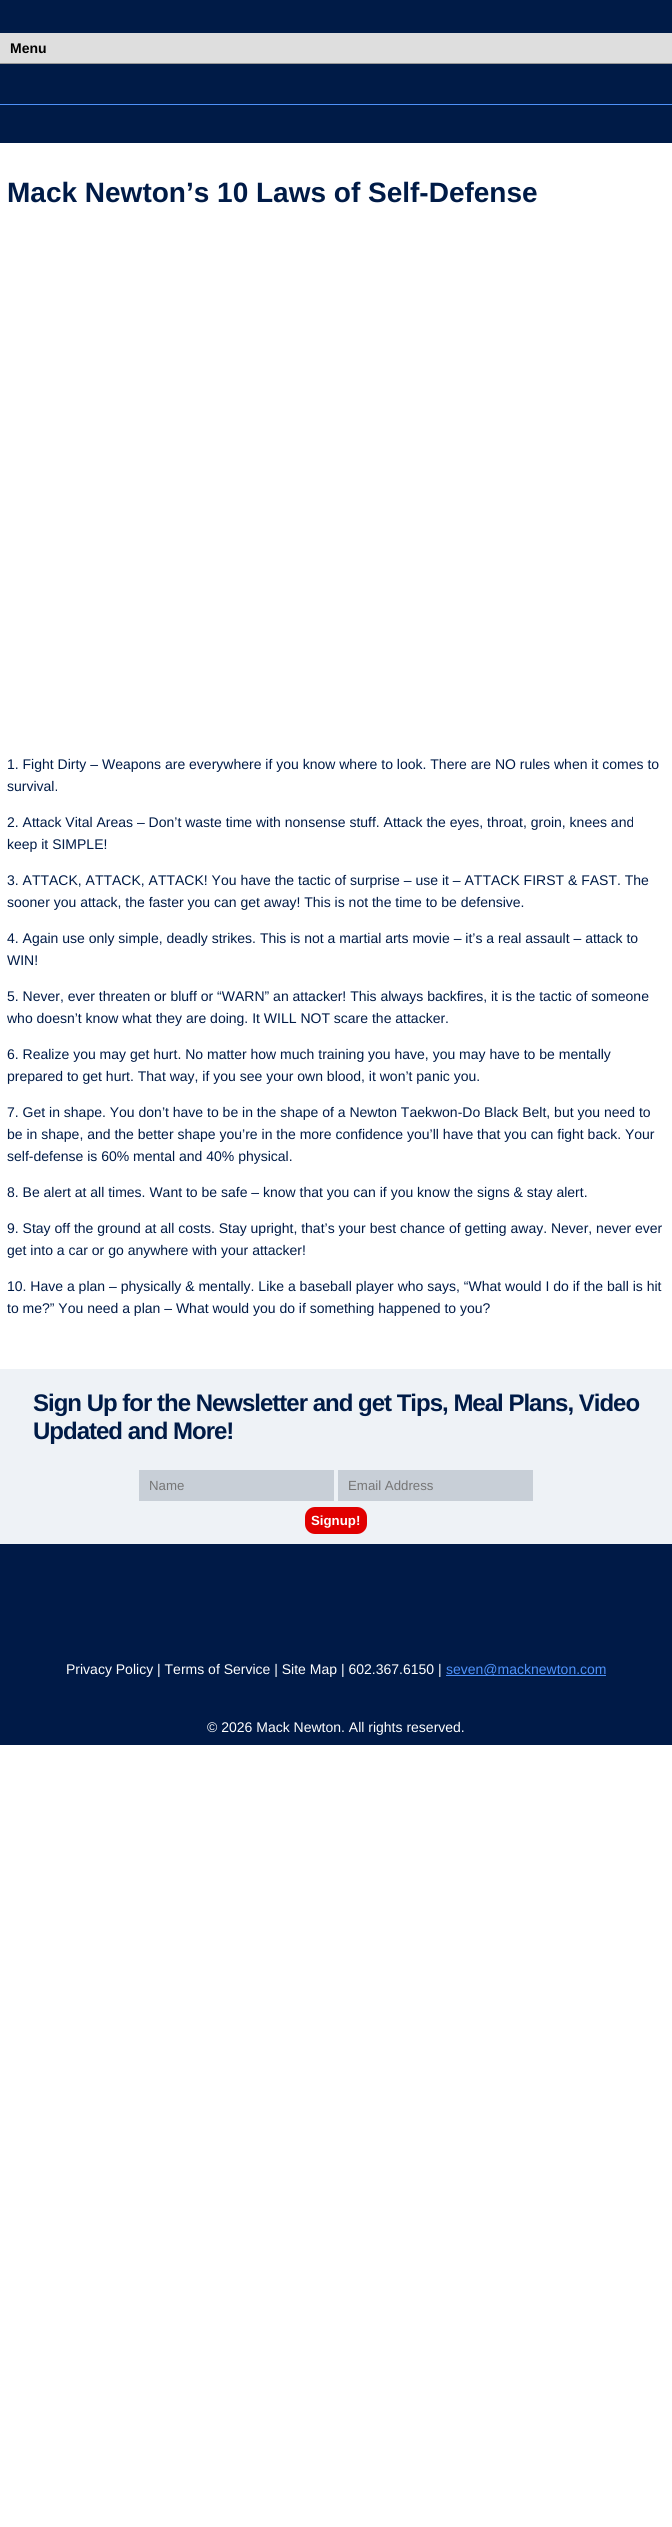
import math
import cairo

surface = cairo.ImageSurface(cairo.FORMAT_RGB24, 672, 2527)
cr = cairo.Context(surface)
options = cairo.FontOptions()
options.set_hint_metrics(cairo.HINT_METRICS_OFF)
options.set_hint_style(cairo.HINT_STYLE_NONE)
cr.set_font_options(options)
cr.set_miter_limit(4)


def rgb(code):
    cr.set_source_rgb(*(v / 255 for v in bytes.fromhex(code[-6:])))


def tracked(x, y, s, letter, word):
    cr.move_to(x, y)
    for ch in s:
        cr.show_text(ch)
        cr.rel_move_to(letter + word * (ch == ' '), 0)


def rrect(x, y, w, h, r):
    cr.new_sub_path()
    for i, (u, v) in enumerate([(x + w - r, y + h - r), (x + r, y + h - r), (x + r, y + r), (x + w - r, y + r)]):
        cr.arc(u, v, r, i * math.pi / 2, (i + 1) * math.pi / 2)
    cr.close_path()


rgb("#ffffff")
cr.paint()
for x, y, w, h, color in [
    (0, 0, 672, 143, "#001b47"),
    (0, 33, 672, 30, "#dedede"),
    (0, 63, 672, 1, "#999999"),
    (0, 104, 672, 1, "#4f92f9"),
    (0, 1369, 672, 175, "#eef2f6"),
    (139, 1470, 195, 31, "#c8cfd7"),
    (338, 1470, 195, 31, "#c8cfd7"),
]:
    rgb(color)
    cr.rectangle(x, y, w, h)
    cr.fill()
rgb("#e10000")
rrect(305, 1507, 62, 27, 10)
cr.fill()
rgb("#001a47")
cr.rectangle(0, 1544, 672, 201)
cr.fill()
rgb("#4f92f9")
cr.rectangle(446, 1675, 160, 1)
cr.fill()
cr.select_font_face("Liberation Sans", cairo.FONT_SLANT_NORMAL, cairo.FONT_WEIGHT_BOLD)
cr.set_font_size(14)
rgb("#000000")
cr.move_to(10, 53)
cr.show_text("Menu")
cr.set_font_size(28)
rgb("#001b47")
cr.move_to(7, 202)
cr.show_text("Mack Newton’s 10 Laws of Self-Defense")
cr.select_font_face("Liberation Sans")
cr.set_font_size(14)
for x, y, s in [
    (7, 769, "1. Fight Dirty – Weapons are everywhere if you know where to look. There are NO rules when it comes to"),
    (7, 791, "survival."),
    (7, 827, "2. Attack Vital Areas – Don’t waste time with nonsense stuff. Attack the eyes, throat, groin, knees and"),
    (7, 849, "keep it SIMPLE!"),
    (7, 885, "3. ATTACK, ATTACK, ATTACK! You have the tactic of surprise – use it – ATTACK FIRST & FAST. The"),
    (7, 907, "sooner you attack, the faster you can get away! This is not the time to be defensive."),
    (7, 943, "4. Again use only simple, deadly strikes. This is not a martial arts movie – it’s a real assault – attack to"),
    (7, 965, "WIN!"),
    (7, 1001, "5. Never, ever threaten or bluff or “WARN” an attacker! This always backfires, it is the tactic of someone"),
    (7, 1023, "who doesn’t know what they are doing. It WILL NOT scare the attacker."),
    (7, 1059, "6. Realize you may get hurt. No matter how much training you have, you may have to be mentally"),
    (7, 1081, "prepared to get hurt. That way, if you see your own blood, it won’t panic you."),
    (7, 1117, "7. Get in shape. You don’t have to be in the shape of a Newton Taekwon-Do Black Belt, but you need to"),
    (7, 1139, "be in shape, and the better shape you’re in the more confidence you’ll have that you can fight back. Your"),
    (7, 1161, "self-defense is 60% mental and 40% physical."),
    (7, 1197, "8. Be alert at all times. Want to be safe – know that you can if you know the signs & stay alert."),
    (7, 1233, "9. Stay off the ground at all costs. Stay upright, that’s your best chance of getting away. Never, never ever"),
    (7, 1255, "get into a car or go anywhere with your attacker!"),
    (7, 1291, "10. Have a plan – physically & mentally. Like a baseball player who says, “What would I do if the ball is hit"),
    (7, 1313, "to me?” You need a plan – What would you do if something happened to you?"),
]:
    cr.move_to(x, y)
    cr.show_text(s)
cr.select_font_face("Liberation Sans", cairo.FONT_SLANT_NORMAL, cairo.FONT_WEIGHT_BOLD)
cr.set_font_size(24)
tracked(33, 1411, "Sign Up for the Newsletter and get Tips, Meal Plans, Video", -1, 0)
tracked(33, 1439, "Updated and More!", -1, 0)
cr.select_font_face("Liberation Sans")
cr.set_font_size(13.25)
rgb("#757575")
cr.move_to(149, 1490)
cr.show_text("Name")
cr.move_to(348, 1490)
cr.show_text("Email Address")
cr.select_font_face("Liberation Sans", cairo.FONT_SLANT_NORMAL, cairo.FONT_WEIGHT_BOLD)
rgb("#ffffff")
cr.move_to(311, 1525)
cr.show_text("Signup!")
cr.select_font_face("Liberation Sans")
cr.set_font_size(14)
cr.move_to(66, 1674)
cr.show_text("Privacy Policy | Terms of Service | Site Map | 602.367.6150 |")
rgb("#4f92f9")
cr.move_to(446, 1674)
cr.show_text("seven@macknewton.com")
rgb("#ffffff")
cr.move_to(207, 1732)
cr.show_text("© 2026 Mack Newton. All rights reserved.")
surface.write_to_png("page.png")
